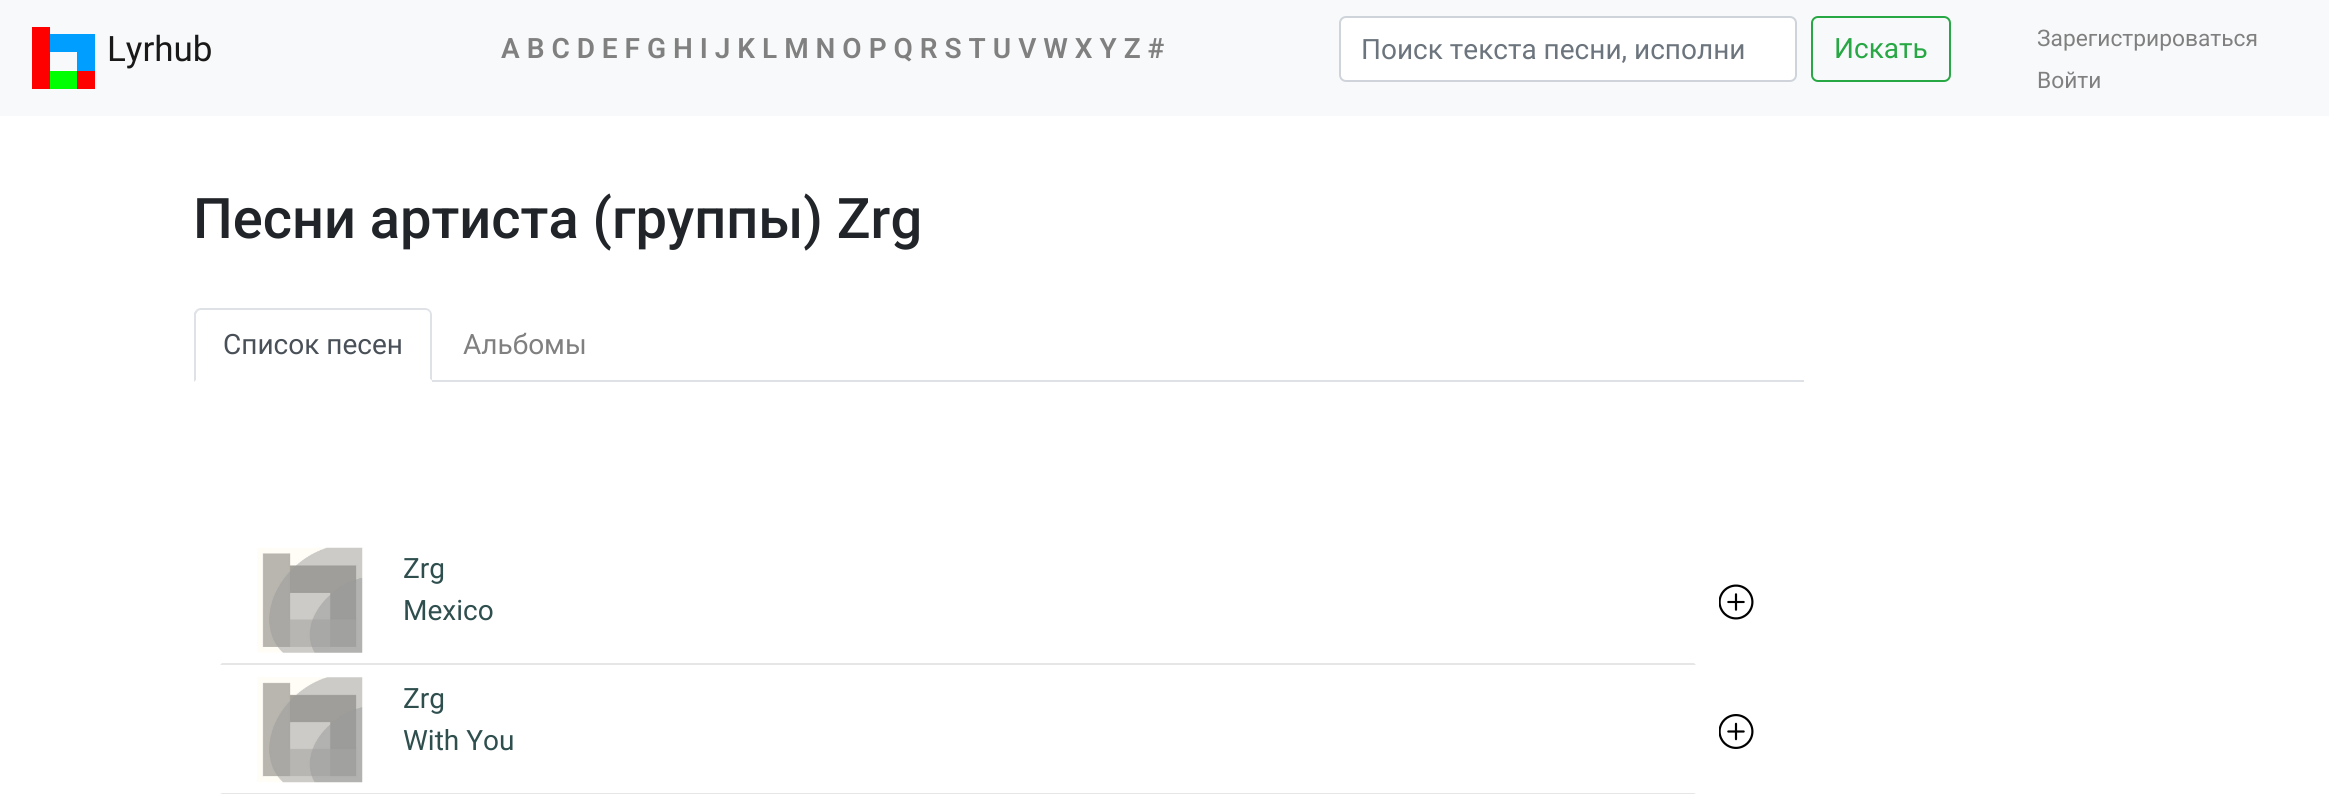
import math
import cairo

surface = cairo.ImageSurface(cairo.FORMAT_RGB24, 2329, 805)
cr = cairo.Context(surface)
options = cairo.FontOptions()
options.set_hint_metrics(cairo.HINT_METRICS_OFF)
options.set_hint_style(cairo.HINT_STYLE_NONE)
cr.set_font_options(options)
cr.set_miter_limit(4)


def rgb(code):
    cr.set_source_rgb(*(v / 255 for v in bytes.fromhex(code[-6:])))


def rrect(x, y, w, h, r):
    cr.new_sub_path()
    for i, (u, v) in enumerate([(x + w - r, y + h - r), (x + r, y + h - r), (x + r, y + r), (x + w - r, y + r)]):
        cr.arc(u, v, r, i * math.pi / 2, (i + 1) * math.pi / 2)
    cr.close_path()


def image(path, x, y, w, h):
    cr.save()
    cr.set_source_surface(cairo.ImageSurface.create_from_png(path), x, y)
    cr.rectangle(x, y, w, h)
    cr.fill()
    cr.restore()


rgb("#ffffff")
cr.paint()
for x, y, w, h, color in [
    (0, 0, 2329, 116, "#f8f9fa"),
    (32, 27, 18, 62, "#ff0000"),
    (50, 71, 27, 18, "#00ff00"),
    (50, 34, 27, 18, "#009fff"),
    (77, 34, 18, 37, "#009fff"),
    (77, 71, 18, 18, "#ff0000"),
]:
    rgb(color)
    cr.rectangle(x, y, w, h)
    cr.fill()
rgb("#ffffff")
rrect(1340, 17, 456, 64, 6)
cr.fill_preserve()
rgb("#ced4da")
cr.stroke()
rrect(1812, 17, 138, 64, 6)
rgb("#28a745")
cr.stroke()
rgb("#dee2e6")
cr.rectangle(432, 380, 1372, 2)
cr.fill()
cr.new_path()
cr.move_to(201, 308)
cr.curve_to(199, 308, 197, 309, 196, 310)
cr.line_to(198, 311)
cr.line_to(200, 310)
cr.line_to(425, 310)
cr.curve_to(426, 310, 428, 310, 429, 312)
cr.line_to(430, 310)
cr.curve_to(429, 309, 427, 308, 425, 308)
cr.close_path()
cr.fill()
cr.new_path()
cr.move_to(430, 310)
cr.curve_to(431, 311, 432, 313, 432, 315)
cr.line_to(432, 381)
cr.line_to(430, 379)
cr.line_to(430, 315)
cr.curve_to(430, 314, 430, 312, 429, 312)
cr.close_path()
cr.fill()
rgb("#ffffff")
cr.new_path()
cr.move_to(432, 381)
cr.line_to(194, 382)
cr.line_to(196, 380)
cr.line_to(430, 380)
cr.line_to(430, 379)
cr.close_path()
cr.fill()
rgb("#dee2e6")
cr.new_path()
cr.move_to(194, 382)
cr.line_to(194, 313)
cr.line_to(196, 310)
cr.line_to(198, 311)
cr.line_to(196, 314)
cr.line_to(196, 380)
cr.close_path()
cr.fill()
rgb("#e6e6e6")
cr.new_path()
cr.move_to(1696, 665)
cr.line_to(220, 665)
cr.line_to(222, 663)
cr.line_to(1694, 663)
cr.close_path()
cr.fill()
image("img/1.png", 257, 547, 106, 106)
image("img/2.png", 1719, 584, 35, 36)
cr.new_path()
cr.move_to(1696, 794)
cr.line_to(220, 794)
cr.line_to(222, 793)
cr.line_to(1694, 793)
cr.close_path()
cr.fill()
image("img/3.png", 257, 677, 106, 106)
image("img/4.png", 1719, 714, 35, 35)
cr.select_font_face("Roboto")
cr.set_font_size(35)
rgb("#191919")
cr.move_to(107, 61)
cr.show_text("Lyrhub")
cr.select_font_face("Roboto SemiBold")
cr.set_font_size(28)
rgb("#808080")
cr.move_to(501, 58)
cr.show_text("A B C D E F G H I J K L M N O P Q R S T U V W X Y Z #")
cr.select_font_face("Roboto")
rgb("#6c757d")
cr.move_to(1361, 59)
cr.show_text("Поиск текста песни, исполни")
rgb("#28a745")
cr.move_to(1834, 58)
cr.show_text("Искать")
cr.set_font_size(22.75)
rgb("#808080")
cr.move_to(2037, 46)
cr.show_text("Зарегистрироваться")
cr.move_to(2037, 88)
cr.show_text("Войти")
cr.select_font_face("Roboto Medium")
cr.set_font_size(56)
rgb("#212529")
cr.move_to(193, 238)
cr.show_text("Песни артиста (группы) Zrg")
cr.select_font_face("Roboto")
cr.set_font_size(28)
rgb("#495057")
cr.move_to(223, 354)
cr.show_text("Список песен")
rgb("#808080")
cr.move_to(463, 354)
cr.show_text("Альбомы")
rgb("#2f4f4f")
for x, y, s in [
    (403, 578, "Zrg"),
    (403, 620, "Mexico"),
    (403, 708, "Zrg"),
    (403, 750, "With You"),
]:
    cr.move_to(x, y)
    cr.show_text(s)
surface.write_to_png("page.png")
